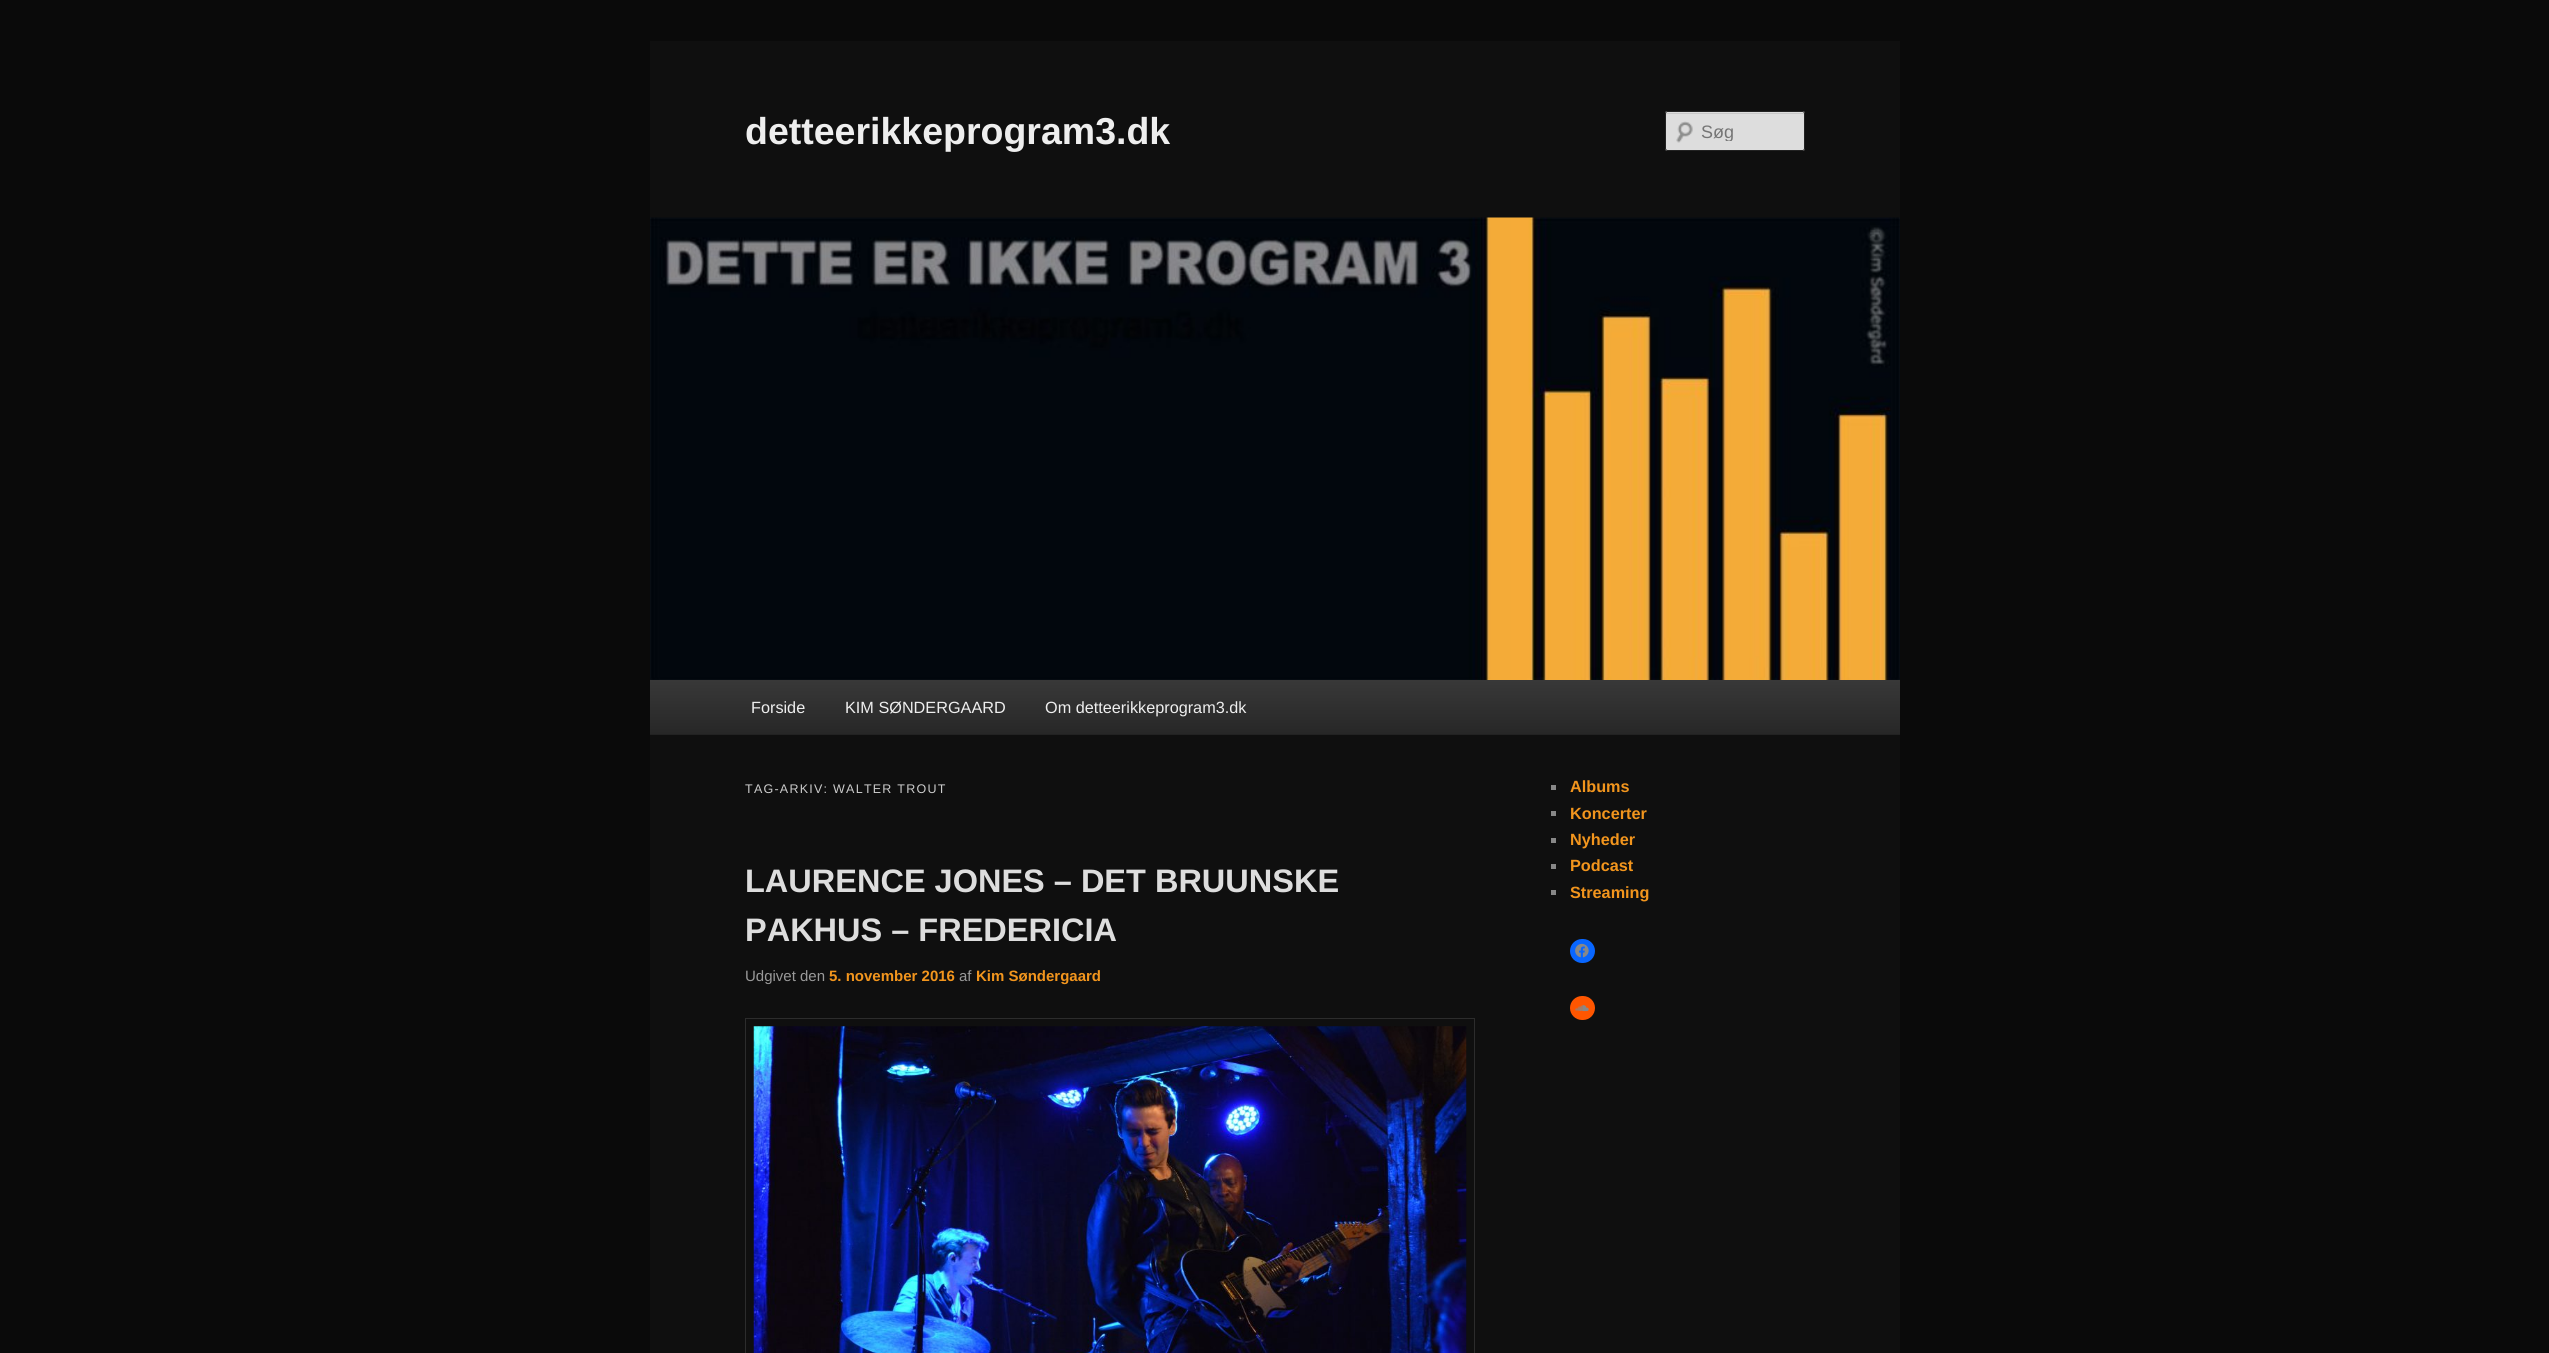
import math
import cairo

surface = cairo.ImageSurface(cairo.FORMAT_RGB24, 2549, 1353)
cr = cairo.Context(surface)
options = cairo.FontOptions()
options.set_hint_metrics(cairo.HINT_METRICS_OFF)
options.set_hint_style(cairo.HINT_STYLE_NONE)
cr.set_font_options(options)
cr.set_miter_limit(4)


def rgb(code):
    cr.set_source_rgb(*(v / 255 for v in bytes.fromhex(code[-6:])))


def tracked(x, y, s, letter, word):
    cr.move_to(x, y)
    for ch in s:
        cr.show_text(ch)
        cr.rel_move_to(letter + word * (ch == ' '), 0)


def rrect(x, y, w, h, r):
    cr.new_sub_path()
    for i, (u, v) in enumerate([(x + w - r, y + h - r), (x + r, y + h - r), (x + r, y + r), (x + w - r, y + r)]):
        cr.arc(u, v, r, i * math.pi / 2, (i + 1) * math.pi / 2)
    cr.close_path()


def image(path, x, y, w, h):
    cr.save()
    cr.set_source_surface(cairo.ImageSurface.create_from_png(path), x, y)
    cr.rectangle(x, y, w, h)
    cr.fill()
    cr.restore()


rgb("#0a0a0a")
cr.paint()
rgb("#0f0f0f")
cr.rectangle(650, 41, 1250, 1312)
cr.fill()
rgb("#dddddd")
rrect(1665, 111, 140, 40, 2.5)
cr.fill()
image("img/1.png", 1676, 121, 17, 22)
rgb("#c7c7c7")
cr.new_path()
cr.move_to(1668, 114)
cr.line_to(1802, 114)
cr.curve_to(1803, 114, 1804, 114, 1804, 115)
cr.curve_to(1804, 114, 1804, 113, 1803, 113)
cr.line_to(1667, 113)
cr.curve_to(1666, 113, 1666, 114, 1666, 115)
cr.curve_to(1666, 114, 1667, 114, 1668, 114)
cr.close_path()
cr.fill()
rrect(1665.5, 111.5, 139, 39, 2)
rgb("#222222")
cr.set_line_width(1)
cr.stroke()
image("img/2.png", 650, 217, 1250, 463)
gradient = cairo.LinearGradient(1275, 680, 1275, 734)
gradient.add_color_stop_rgba(0, 0.22, 0.22, 0.22, 1)
gradient.add_color_stop_rgba(1, 0.153, 0.153, 0.153, 1)
cr.set_source(gradient)
cr.rectangle(650, 680, 1250, 54)
cr.fill()
rgb("#222222")
cr.rectangle(650, 734, 1250, 1)
cr.fill()
cr.rectangle(745.5, 1018.5, 729, 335)
rgb("#2c2c2c")
cr.stroke()
image("img/3.png", 753, 1026, 714, 327)
for x, y, w, h, color in [
    (1551, 785, 5, 5, "#888888"),
    (1551, 811, 5, 5, "#888888"),
    (1551, 838, 5, 5, "#888888"),
    (1551, 864, 5, 5, "#888888"),
    (1551, 890, 5, 5, "#888888"),
]:
    rgb(color)
    cr.rectangle(x, y, w, h)
    cr.fill()
rgb("#0866ff")
rrect(1570, 939, 25, 24, 12)
cr.fill()
image("img/4.png", 1575, 943, 14, 15)
rgb("#ff5600")
rrect(1570, 996, 25, 24, 12)
cr.fill()
image("img/5.png", 1575, 1005, 14, 7)
cr.select_font_face("Liberation Sans", cairo.FONT_SLANT_NORMAL, cairo.FONT_WEIGHT_BOLD)
cr.set_font_size(37.5)
rgb("#eeeeee")
cr.move_to(745, 144)
cr.show_text("detteerikkeprogram3.dk")
cr.save()
cr.rectangle(1701, 121, 90, 20)
cr.clip()
cr.select_font_face("Liberation Sans")
cr.set_font_size(18)
rgb("#757575")
cr.move_to(1701, 138)
cr.show_text("Søg")
cr.restore()
cr.select_font_face("Liberation Sans")
cr.set_font_size(16.25)
for x, y, s in [
    (751, 713, "Forside"),
    (845, 713, "KIM SØNDERGAARD"),
    (1045, 713, "Om detteerikkeprogram3.dk"),
]:
    cr.move_to(x, y)
    cr.show_text(s)
cr.set_font_size(12.5)
rgb("#cccccc")
tracked(745, 793, "TAG-ARKIV: WALTER TROUT", 1.25, 0)
cr.select_font_face("Liberation Sans", cairo.FONT_SLANT_NORMAL, cairo.FONT_WEIGHT_BOLD)
cr.set_font_size(32.5)
rgb("#dddddd")
cr.move_to(745, 892)
cr.show_text("LAURENCE JONES – DET BRUUNSKE")
cr.move_to(745, 941)
cr.show_text("PAKHUS – FREDERICIA")
cr.select_font_face("Liberation Sans")
cr.set_font_size(15)
rgb("#999999")
cr.move_to(745, 981)
cr.show_text("Udgivet den")
cr.select_font_face("Liberation Sans", cairo.FONT_SLANT_NORMAL, cairo.FONT_WEIGHT_BOLD)
rgb("#f2951d")
cr.move_to(829, 981)
cr.show_text("5. november 2016")
cr.select_font_face("Liberation Sans")
rgb("#999999")
cr.move_to(959, 981)
cr.show_text("af")
cr.select_font_face("Liberation Sans", cairo.FONT_SLANT_NORMAL, cairo.FONT_WEIGHT_BOLD)
rgb("#f2951d")
cr.move_to(976, 981)
cr.show_text("Kim Søndergaard")
cr.set_font_size(16.25)
for x, y, s in [
    (1570, 792, "Albums"),
    (1570, 819, "Koncerter"),
    (1570, 845, "Nyheder"),
    (1570, 871, "Podcast"),
    (1570, 898, "Streaming"),
]:
    cr.move_to(x, y)
    cr.show_text(s)
surface.write_to_png("page.png")
